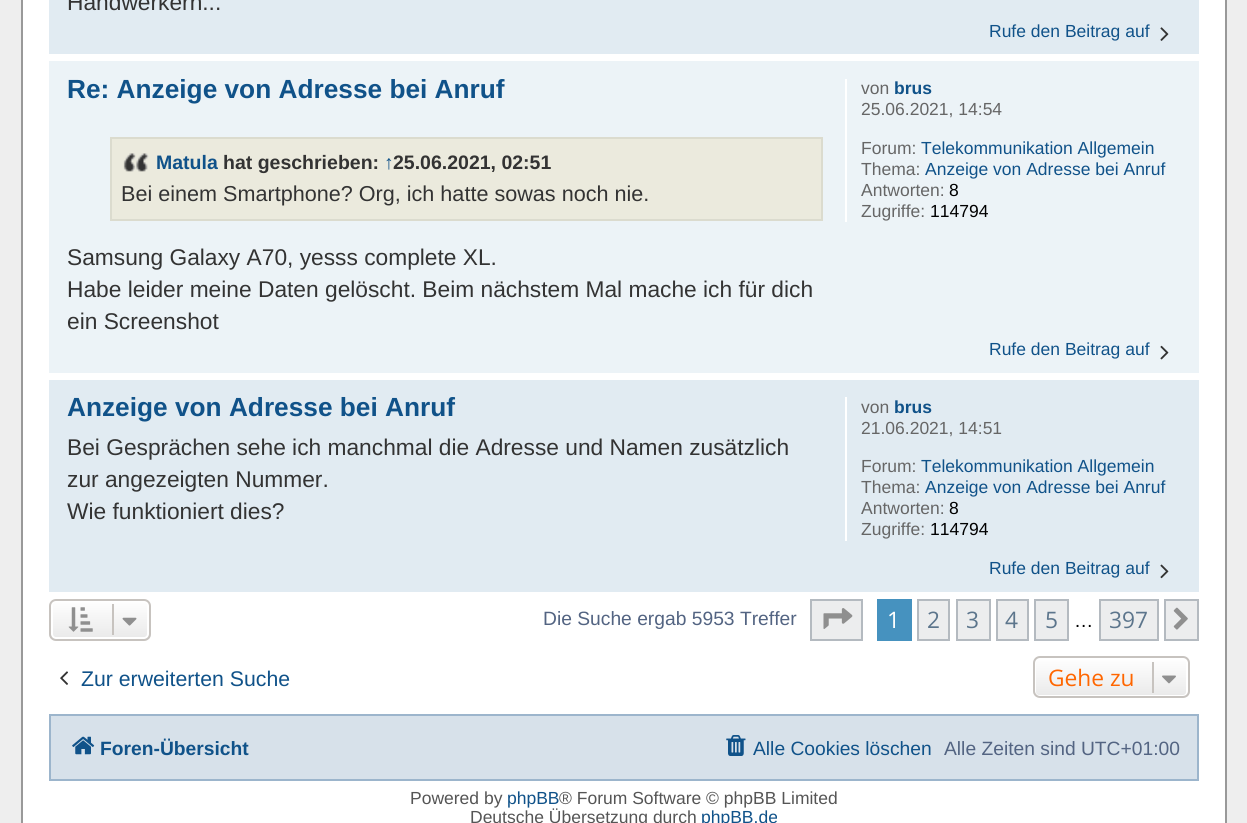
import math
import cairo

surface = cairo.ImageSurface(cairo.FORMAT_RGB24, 1247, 823)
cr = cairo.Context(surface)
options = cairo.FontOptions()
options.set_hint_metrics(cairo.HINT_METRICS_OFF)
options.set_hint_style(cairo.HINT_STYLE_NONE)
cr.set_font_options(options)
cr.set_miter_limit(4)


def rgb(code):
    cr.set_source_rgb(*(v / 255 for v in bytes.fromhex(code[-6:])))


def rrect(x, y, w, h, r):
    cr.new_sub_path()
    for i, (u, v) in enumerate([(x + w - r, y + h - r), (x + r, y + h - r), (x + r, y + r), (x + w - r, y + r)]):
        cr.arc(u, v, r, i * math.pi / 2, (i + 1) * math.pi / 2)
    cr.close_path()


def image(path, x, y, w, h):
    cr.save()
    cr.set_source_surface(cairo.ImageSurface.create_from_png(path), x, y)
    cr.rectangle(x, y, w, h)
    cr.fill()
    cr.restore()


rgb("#eeeeee")
cr.paint()
for x, y, w, h, color in [
    (23, 0, 1202, 823, "#ffffff"),
    (1225, 0, 2, 823, "#999999"),
    (21, 0, 2, 823, "#999999"),
    (49, 0, 1150, 54, "#e1ebf2"),
]:
    rgb(color)
    cr.rectangle(x, y, w, h)
    cr.fill()
image("img/1.png", 1160, 27, 9, 14)
rgb("#ecf3f7")
cr.rectangle(49, 61, 1150, 312)
cr.fill()
rgb("#ebeadd")
cr.rectangle(112, 139, 709, 80)
cr.fill()
image("img/2.png", 123, 153, 26, 19)
cr.rectangle(111, 138, 711, 82)
rgb("#dbdbce")
cr.stroke()
rgb("#ffffff")
cr.rectangle(845, 79, 2, 143)
cr.fill()
image("img/3.png", 1160, 345, 9, 15)
rgb("#e1ebf2")
cr.rectangle(49, 380, 1150, 212)
cr.fill()
rgb("#ffffff")
cr.rectangle(845, 397, 2, 144)
cr.fill()
image("img/4.png", 1160, 564, 9, 15)
cr.save()
rrect(49, 599, 102, 42, 7)
cr.clip()
gradient = cairo.LinearGradient(100, 600, 100, 639)
gradient.add_color_stop_rgba(0, 1, 1, 1, 1)
gradient.add_color_stop_rgba(1, 0.914, 0.914, 0.914, 1)
cr.set_source(gradient)
cr.rectangle(49, 600, 102, 39)
cr.fill()
cr.restore()
rrect(52, 601, 96, 37, 4)
cr.stroke()
rrect(50, 600, 100, 40, 6)
rgb("#c7c3bf")
cr.stroke()
image("img/5.png", 68, 607, 25, 25)
cr.rectangle(112, 604, 2, 31)
cr.fill()
image("img/6.png", 122, 617, 15, 9)
rgb("#ecedee")
cr.rectangle(811, 600, 51, 40)
cr.fill_preserve()
rgb("#b4bac0")
cr.stroke()
image("img/7.png", 823, 608, 30, 21)
rgb("#4692bf")
cr.rectangle(877, 599, 35, 42)
cr.fill()
rgb("#ecedee")
cr.rectangle(918, 600, 31, 40)
cr.fill_preserve()
rgb("#b4bac0")
cr.stroke()
rgb("#ecedee")
cr.rectangle(957, 600, 33, 40)
cr.fill_preserve()
rgb("#b4bac0")
cr.stroke()
rgb("#ecedee")
cr.rectangle(997, 600, 31, 40)
cr.fill_preserve()
rgb("#b4bac0")
cr.stroke()
rgb("#ecedee")
cr.rectangle(1035, 600, 33, 40)
cr.fill_preserve()
rgb("#b4bac0")
cr.stroke()
rgb("#ecedee")
cr.rectangle(1100, 600, 58, 40)
cr.fill_preserve()
rgb("#b4bac0")
cr.stroke()
rgb("#ecedee")
cr.rectangle(1165, 600, 33, 40)
cr.fill_preserve()
rgb("#b4bac0")
cr.stroke()
image("img/8.png", 1173, 607, 15, 23)
image("img/9.png", 60, 671, 8, 14)
cr.save()
rrect(1033, 656, 157, 42, 7)
cr.clip()
gradient = cairo.LinearGradient(1111, 658, 1111, 697)
gradient.add_color_stop_rgba(0, 1, 1, 1, 1)
gradient.add_color_stop_rgba(1, 0.914, 0.914, 0.914, 1)
cr.set_source(gradient)
cr.rectangle(1033, 658, 157, 39)
cr.fill()
cr.restore()
rrect(1035, 659, 152, 37, 4)
rgb("#ffffff")
cr.stroke()
rrect(1034, 657, 155, 40, 6)
rgb("#c7c3bf")
cr.stroke()
cr.rectangle(1152, 662, 2, 31)
cr.fill()
image("img/10.png", 1162, 675, 14, 9)
rgb("#d7e1ea")
cr.rectangle(50, 715, 1148, 65)
cr.fill_preserve()
rgb("#9cb5cc")
cr.stroke()
image("img/11.png", 72, 736, 23, 19)
image("img/12.png", 726, 735, 20, 21)
cr.select_font_face("Liberation Sans")
cr.set_font_size(22.75)
rgb("#333333")
cr.move_to(67, 10)
cr.show_text("Handwerkern...")
cr.set_font_size(17.5)
rgb("#105289")
cr.move_to(989, 37)
cr.show_text("Rufe den Beitrag auf")
cr.select_font_face("Liberation Sans", cairo.FONT_SLANT_NORMAL, cairo.FONT_WEIGHT_BOLD)
cr.set_font_size(26.25)
cr.move_to(67, 98)
cr.show_text("Re: Anzeige von Adresse bei Anruf")
cr.set_font_size(19.5)
cr.move_to(156, 169)
cr.show_text("Matula")
rgb("#333333")
cr.move_to(223, 169)
cr.show_text("hat geschrieben:")
rgb("#105289")
cr.move_to(384, 169)
cr.show_text("↑")
rgb("#333333")
cr.move_to(393, 169)
cr.show_text("25.06.2021, 02:51")
cr.select_font_face("Liberation Sans")
cr.set_font_size(21.6)
cr.move_to(121, 201)
cr.show_text("Bei einem Smartphone? Org, ich hatte sowas noch nie.")
cr.set_font_size(22.75)
for x, y, s in [
    (67, 265, "Samsung Galaxy A70, yesss complete XL."),
    (67, 297, "Habe leider meine Daten gelöscht. Beim nächstem Mal mache ich für dich"),
    (67, 329, "ein Screenshot"),
]:
    cr.move_to(x, y)
    cr.show_text(s)
cr.set_font_size(17.5)
rgb("#666666")
cr.move_to(861, 94)
cr.show_text("von")
cr.select_font_face("Liberation Sans", cairo.FONT_SLANT_NORMAL, cairo.FONT_WEIGHT_BOLD)
rgb("#105289")
cr.move_to(894, 94)
cr.show_text("brus")
cr.select_font_face("Liberation Sans")
rgb("#666666")
cr.move_to(861, 115)
cr.show_text("25.06.2021, 14:54")
cr.move_to(861, 154)
cr.show_text("Forum:")
rgb("#105289")
cr.move_to(921, 154)
cr.show_text("Telekommunikation Allgemein")
rgb("#666666")
cr.move_to(861, 175)
cr.show_text("Thema:")
rgb("#105289")
cr.move_to(925, 175)
cr.show_text("Anzeige von Adresse bei Anruf")
rgb("#666666")
cr.move_to(861, 196)
cr.show_text("Antworten:")
rgb("#000000")
cr.move_to(949, 196)
cr.show_text("8")
rgb("#666666")
cr.move_to(861, 217)
cr.show_text("Zugriffe:")
rgb("#000000")
cr.move_to(930, 217)
cr.show_text("114794")
rgb("#105289")
cr.move_to(989, 355)
cr.show_text("Rufe den Beitrag auf")
cr.select_font_face("Liberation Sans", cairo.FONT_SLANT_NORMAL, cairo.FONT_WEIGHT_BOLD)
cr.set_font_size(26.25)
cr.move_to(67, 416)
cr.show_text("Anzeige von Adresse bei Anruf")
cr.select_font_face("Liberation Sans")
cr.set_font_size(22.75)
rgb("#333333")
for x, y, s in [
    (67, 455, "Bei Gesprächen sehe ich manchmal die Adresse und Namen zusätzlich"),
    (67, 487, "zur angezeigten Nummer."),
    (67, 519, "Wie funktioniert dies?"),
]:
    cr.move_to(x, y)
    cr.show_text(s)
cr.set_font_size(17.5)
rgb("#666666")
cr.move_to(861, 413)
cr.show_text("von")
cr.select_font_face("Liberation Sans", cairo.FONT_SLANT_NORMAL, cairo.FONT_WEIGHT_BOLD)
rgb("#105289")
cr.move_to(894, 413)
cr.show_text("brus")
cr.select_font_face("Liberation Sans")
rgb("#666666")
cr.move_to(861, 434)
cr.show_text("21.06.2021, 14:51")
cr.move_to(861, 472)
cr.show_text("Forum:")
rgb("#105289")
cr.move_to(921, 472)
cr.show_text("Telekommunikation Allgemein")
rgb("#666666")
cr.move_to(861, 493)
cr.show_text("Thema:")
rgb("#105289")
cr.move_to(925, 493)
cr.show_text("Anzeige von Adresse bei Anruf")
rgb("#666666")
cr.move_to(861, 514)
cr.show_text("Antworten:")
rgb("#000000")
cr.move_to(949, 514)
cr.show_text("8")
rgb("#666666")
cr.move_to(861, 535)
cr.show_text("Zugriffe:")
rgb("#000000")
cr.move_to(930, 535)
cr.show_text("114794")
rgb("#105289")
cr.move_to(989, 574)
cr.show_text("Rufe den Beitrag auf")
cr.set_font_size(19.25)
rgb("#536482")
cr.move_to(543, 625)
cr.show_text("Die Suche ergab 5953 Treffer")
cr.select_font_face("Open Sans")
cr.set_font_size(22.75)
rgb("#ffffff")
cr.move_to(887, 628)
cr.show_text("1")
rgb("#5c758c")
for x, y, s in [
    (927, 628, "2"),
    (966, 628, "3"),
    (1005, 628, "4"),
    (1045, 628, "5"),
]:
    cr.move_to(x, y)
    cr.show_text(s)
cr.select_font_face("Liberation Sans")
cr.set_font_size(19.25)
rgb("#000000")
cr.move_to(1074, 627)
cr.show_text("…")
cr.select_font_face("Open Sans")
cr.set_font_size(22.75)
rgb("#5c758c")
cr.move_to(1109, 628)
cr.show_text("397")
cr.select_font_face("Liberation Sans")
cr.set_font_size(21.25)
rgb("#105289")
cr.move_to(81, 686)
cr.show_text("Zur erweiterten Suche")
cr.select_font_face("Open Sans")
cr.set_font_size(22.75)
rgb("#ff6600")
cr.move_to(1048, 686)
cr.show_text("Gehe zu")
cr.select_font_face("Liberation Sans", cairo.FONT_SLANT_NORMAL, cairo.FONT_WEIGHT_BOLD)
cr.set_font_size(19.25)
rgb("#105289")
cr.move_to(100, 755)
cr.show_text("Foren-Übersicht")
cr.select_font_face("Liberation Sans")
cr.move_to(753, 755)
cr.show_text("Alle Cookies löschen")
rgb("#536482")
cr.move_to(944, 755)
cr.show_text("Alle Zeiten sind UTC+01:00")
cr.set_font_size(17.5)
rgb("#555555")
cr.move_to(410, 804)
cr.show_text("Powered by")
rgb("#105289")
cr.move_to(507, 804)
cr.show_text("phpBB")
rgb("#555555")
cr.move_to(559, 804)
cr.show_text("® Forum Software © phpBB Limited")
cr.move_to(470, 823)
cr.show_text("Deutsche Übersetzung durch")
rgb("#105289")
cr.move_to(701, 823)
cr.show_text("phpBB.de")
surface.write_to_png("page.png")
